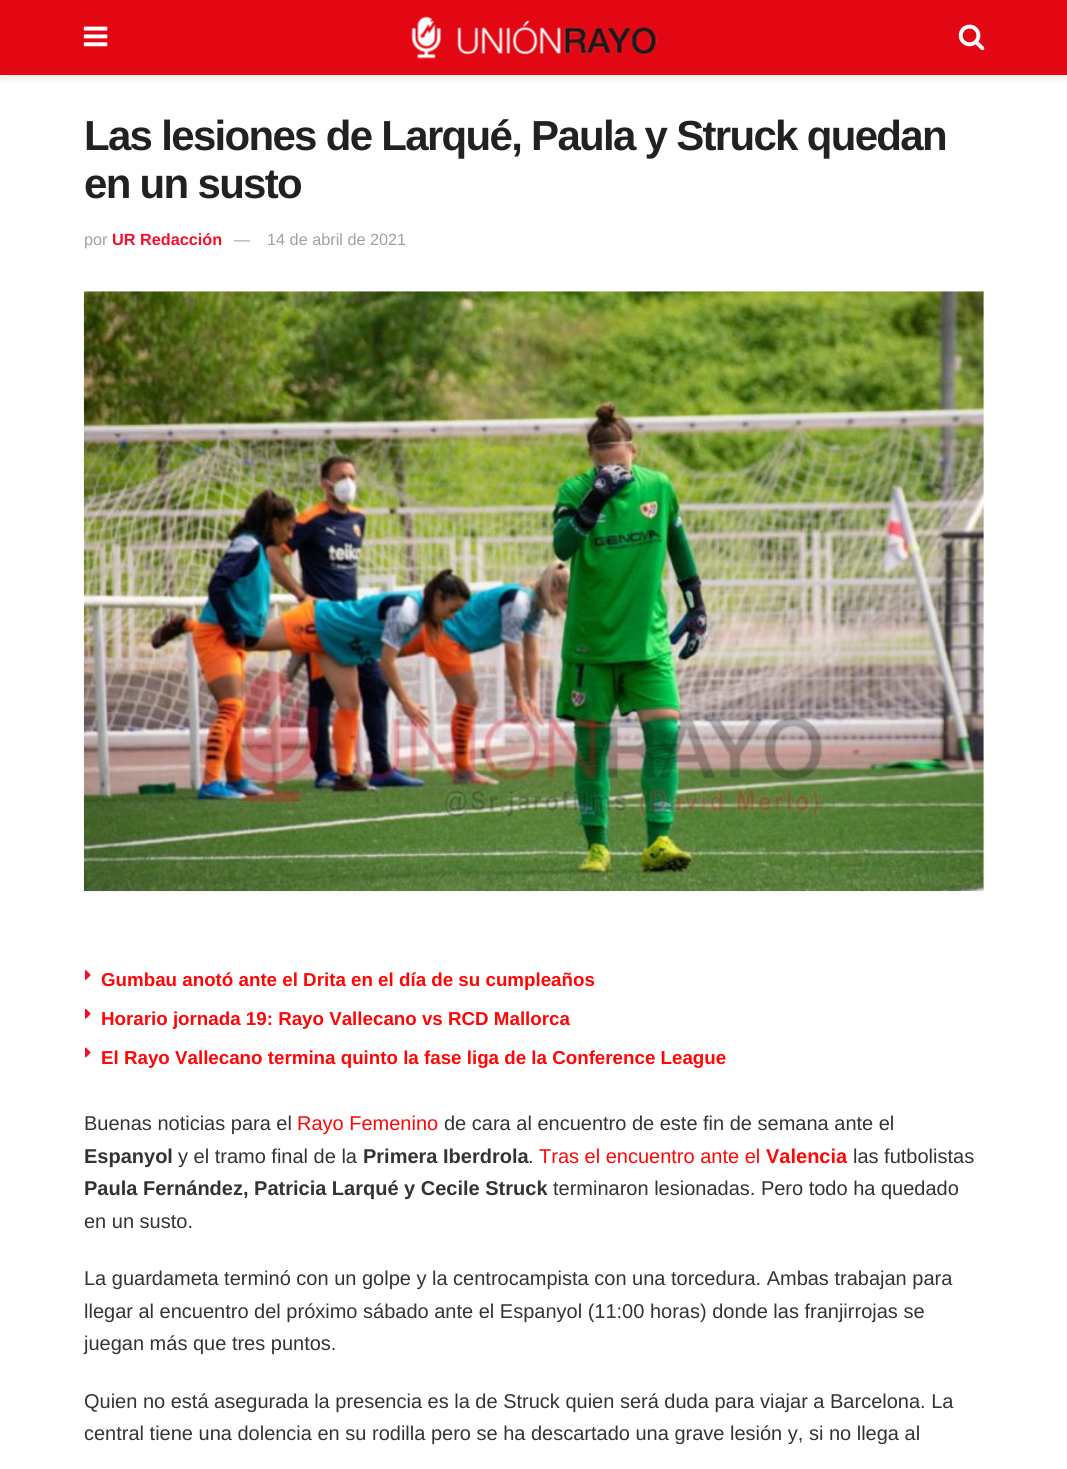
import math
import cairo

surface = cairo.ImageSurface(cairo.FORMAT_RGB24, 1067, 1469)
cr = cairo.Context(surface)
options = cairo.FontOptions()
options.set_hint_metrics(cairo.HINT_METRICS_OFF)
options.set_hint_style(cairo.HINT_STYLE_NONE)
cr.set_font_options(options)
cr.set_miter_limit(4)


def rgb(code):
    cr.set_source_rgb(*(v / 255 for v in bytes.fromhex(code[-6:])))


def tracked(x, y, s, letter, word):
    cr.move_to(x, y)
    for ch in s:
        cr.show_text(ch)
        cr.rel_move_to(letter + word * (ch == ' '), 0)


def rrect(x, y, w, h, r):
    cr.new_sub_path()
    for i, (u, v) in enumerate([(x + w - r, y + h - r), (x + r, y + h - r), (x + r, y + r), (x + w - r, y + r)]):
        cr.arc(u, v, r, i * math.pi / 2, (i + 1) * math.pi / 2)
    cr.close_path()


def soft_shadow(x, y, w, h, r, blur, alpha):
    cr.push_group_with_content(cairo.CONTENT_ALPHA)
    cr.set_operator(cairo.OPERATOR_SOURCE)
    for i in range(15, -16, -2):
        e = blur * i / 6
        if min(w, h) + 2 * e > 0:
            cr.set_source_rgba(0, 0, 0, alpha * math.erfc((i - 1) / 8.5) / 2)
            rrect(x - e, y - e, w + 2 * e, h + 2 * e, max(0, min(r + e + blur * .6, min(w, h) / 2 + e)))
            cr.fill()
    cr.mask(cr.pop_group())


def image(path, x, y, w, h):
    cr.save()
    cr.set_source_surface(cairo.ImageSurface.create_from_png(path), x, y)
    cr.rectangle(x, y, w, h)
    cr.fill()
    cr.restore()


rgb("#ffffff")
cr.paint()
rgb("#000000")
soft_shadow(0, 3, 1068, 75, 0, 4, 0.1)
rgb("#e30713")
cr.rectangle(0, 0, 1067, 75)
cr.fill()
image("img/1.png", 83, 26, 25, 21)
image("img/2.png", 411, 16, 246, 43)
image("img/3.png", 958, 24, 27, 27)
rgb("#f7f7f7")
cr.rectangle(84, 291, 900, 600)
cr.fill()
image("img/4.png", 83, 291, 901, 601)
image("img/5.png", 85, 970, 6, 10)
image("img/6.png", 85, 1008, 6, 11)
image("img/7.png", 85, 1047, 6, 11)
cr.select_font_face("Liberation Sans", cairo.FONT_SLANT_NORMAL, cairo.FONT_WEIGHT_BOLD)
cr.set_font_size(42)
rgb("#212121")
tracked(84, 150, "Las lesiones de Larqué, Paula y Struck quedan", -1.7, 0)
tracked(84, 198, "en un susto", -1.7, 0)
cr.select_font_face("Liberation Sans")
cr.set_font_size(16.25)
rgb("#a0a0a0")
cr.move_to(84, 245)
cr.show_text("por")
cr.select_font_face("Liberation Sans", cairo.FONT_SLANT_NORMAL, cairo.FONT_WEIGHT_BOLD)
rgb("#f70d28")
cr.move_to(112, 245)
cr.show_text("UR Redacción")
cr.select_font_face("Liberation Sans")
rgb("#a0a0a0")
cr.move_to(234, 245)
cr.show_text("—")
cr.move_to(267, 245)
cr.show_text("14 de abril de 2021")
cr.select_font_face("Liberation Sans", cairo.FONT_SLANT_NORMAL, cairo.FONT_WEIGHT_BOLD)
cr.set_font_size(18.75)
rgb("#ff0505")
for x, y, s in [
    (101, 986, "Gumbau anotó ante el Drita en el día de su cumpleaños"),
    (101, 1025, "Horario jornada 19: Rayo Vallecano vs RCD Mallorca"),
    (101, 1064, "El Rayo Vallecano termina quinto la fase liga de la Conference League"),
]:
    cr.move_to(x, y)
    cr.show_text(s)
cr.select_font_face("Liberation Sans")
cr.set_font_size(20)
rgb("#333333")
cr.move_to(84, 1130)
cr.show_text("Buenas noticias para el")
rgb("#ff0505")
cr.move_to(297, 1130)
cr.show_text("Rayo Femenino")
rgb("#333333")
cr.move_to(444, 1130)
cr.show_text("de cara al encuentro de este fin de semana ante el")
cr.select_font_face("Liberation Sans", cairo.FONT_SLANT_NORMAL, cairo.FONT_WEIGHT_BOLD)
cr.move_to(84, 1163)
cr.show_text("Espanyol")
cr.select_font_face("Liberation Sans")
cr.move_to(178, 1163)
cr.show_text("y el tramo final de la")
cr.select_font_face("Liberation Sans", cairo.FONT_SLANT_NORMAL, cairo.FONT_WEIGHT_BOLD)
cr.move_to(363, 1163)
cr.show_text("Primera Iberdrola")
cr.select_font_face("Liberation Sans")
cr.move_to(528, 1163)
cr.show_text(".")
rgb("#ff0505")
cr.move_to(539, 1163)
cr.show_text("Tras el encuentro ante el")
cr.select_font_face("Liberation Sans", cairo.FONT_SLANT_NORMAL, cairo.FONT_WEIGHT_BOLD)
cr.move_to(766, 1163)
cr.show_text("Valencia")
cr.select_font_face("Liberation Sans")
rgb("#333333")
cr.move_to(853, 1163)
cr.show_text("las futbolistas")
cr.select_font_face("Liberation Sans", cairo.FONT_SLANT_NORMAL, cairo.FONT_WEIGHT_BOLD)
cr.move_to(84, 1195)
cr.show_text("Paula Fernández, Patricia Larqué y Cecile Struck")
cr.select_font_face("Liberation Sans")
for x, y, s in [
    (553, 1195, "terminaron lesionadas. Pero todo ha quedado"),
    (84, 1228, "en un susto."),
    (84, 1285, "La guardameta terminó con un golpe y la centrocampista con una torcedura. Ambas trabajan para"),
    (84, 1318, "llegar al encuentro del próximo sábado ante el Espanyol (11:00 horas) donde las franjirrojas se"),
    (84, 1350, "juegan más que tres puntos."),
    (84, 1408, "Quien no está asegurada la presencia es la de Struck quien será duda para viajar a Barcelona. La"),
    (84, 1440, "central tiene una dolencia en su rodilla pero se ha descartado una grave lesión y, si no llega al"),
]:
    cr.move_to(x, y)
    cr.show_text(s)
surface.write_to_png("page.png")
